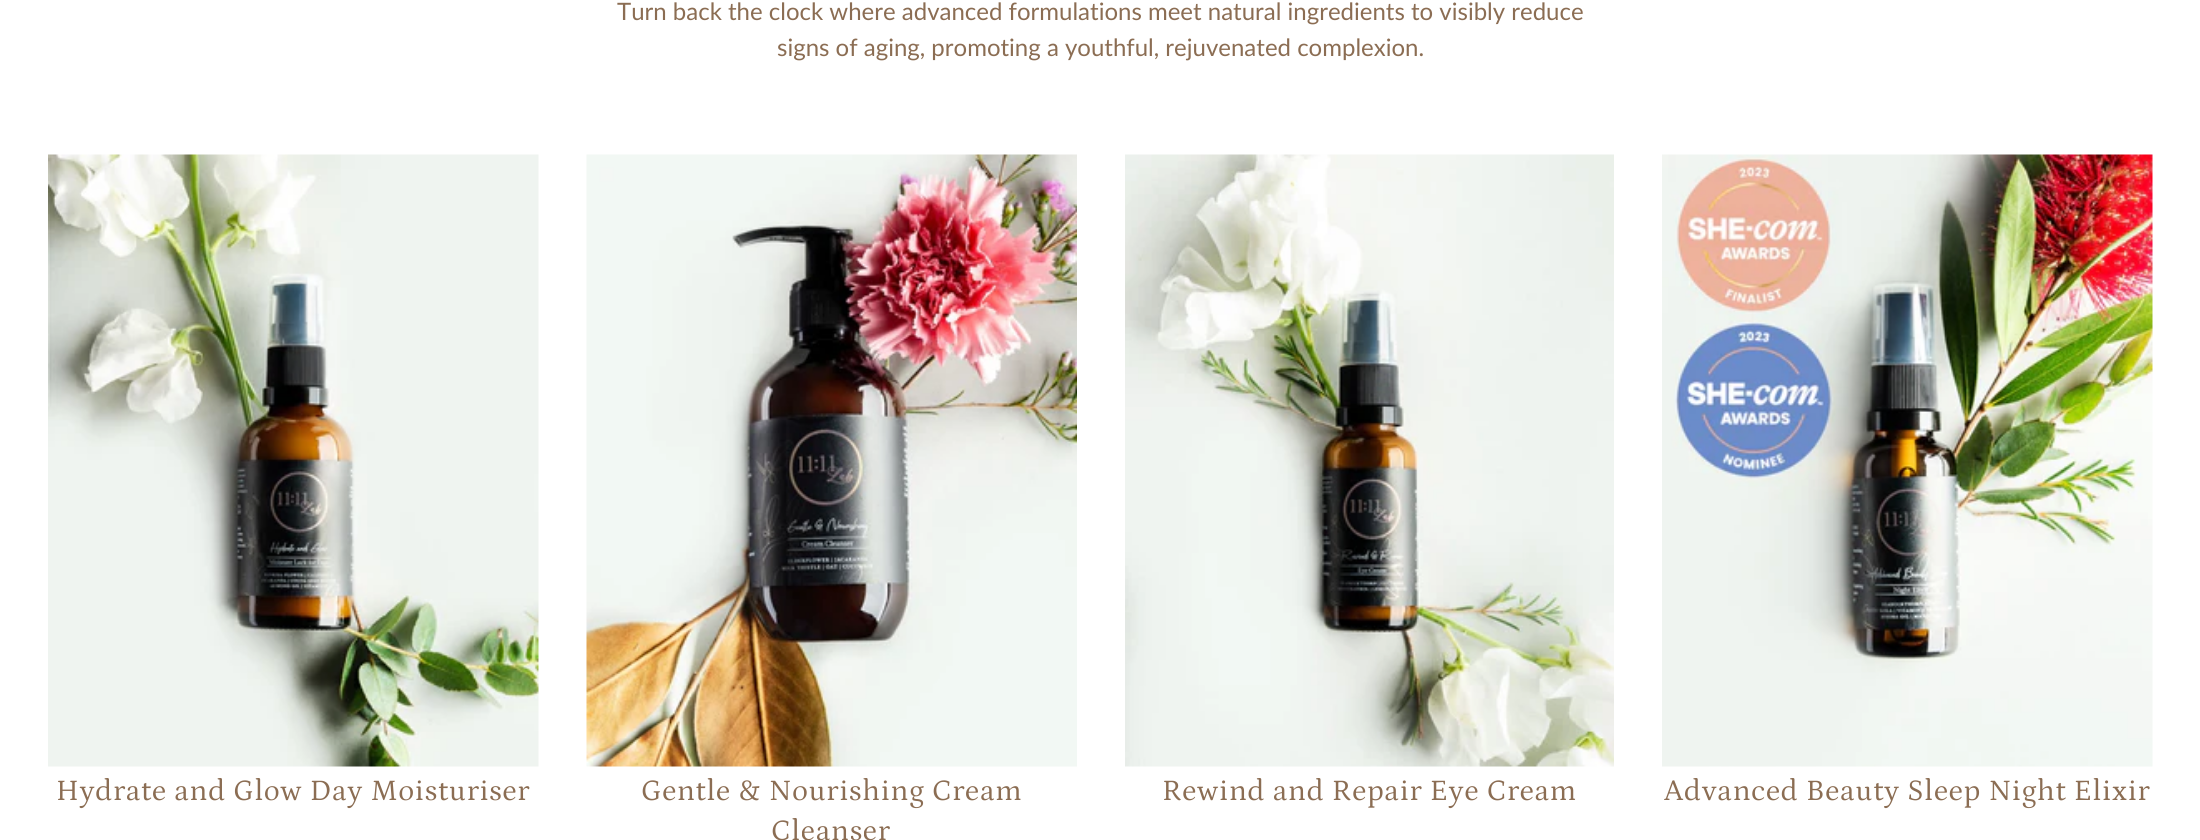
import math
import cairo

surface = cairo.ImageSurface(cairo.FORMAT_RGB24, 2200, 840)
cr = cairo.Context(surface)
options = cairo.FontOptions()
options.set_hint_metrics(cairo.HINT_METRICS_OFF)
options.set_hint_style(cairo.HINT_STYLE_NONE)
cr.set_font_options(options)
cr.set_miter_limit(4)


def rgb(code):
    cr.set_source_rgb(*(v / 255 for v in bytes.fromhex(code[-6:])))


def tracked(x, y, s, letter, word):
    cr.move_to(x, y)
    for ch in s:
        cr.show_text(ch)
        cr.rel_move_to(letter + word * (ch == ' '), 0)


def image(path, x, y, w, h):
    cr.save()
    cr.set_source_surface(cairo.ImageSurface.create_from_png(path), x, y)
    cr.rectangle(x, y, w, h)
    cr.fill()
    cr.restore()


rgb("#ffffff")
cr.paint()
image("img/1.png", 48, 154, 491, 613)
image("img/2.png", 586, 154, 491, 613)
image("img/3.png", 1125, 154, 489, 613)
image("img/4.png", 1662, 154, 491, 613)
cr.select_font_face("Lato")
cr.set_font_size(24)
rgb("#8b6d53")
cr.move_to(617, 20)
cr.show_text("Turn back the clock where advanced formulations meet natural ingredients to visibly reduce")
cr.move_to(777, 56)
cr.show_text("signs of aging, promoting a youthful, rejuvenated complexion.")
cr.select_font_face("Petrona")
cr.set_font_size(30)
for x, y, s in [
    (56, 800, "Hydrate and Glow Day Moisturiser"),
    (641, 800, "Gentle & Nourishing Cream"),
    (771, 840, "Cleanser"),
    (1162, 800, "Rewind and Repair Eye Cream"),
    (1664, 800, "Advanced Beauty Sleep Night Elixir"),
]:
    tracked(x, y, s, 0.75, 0)
surface.write_to_png("page.png")
